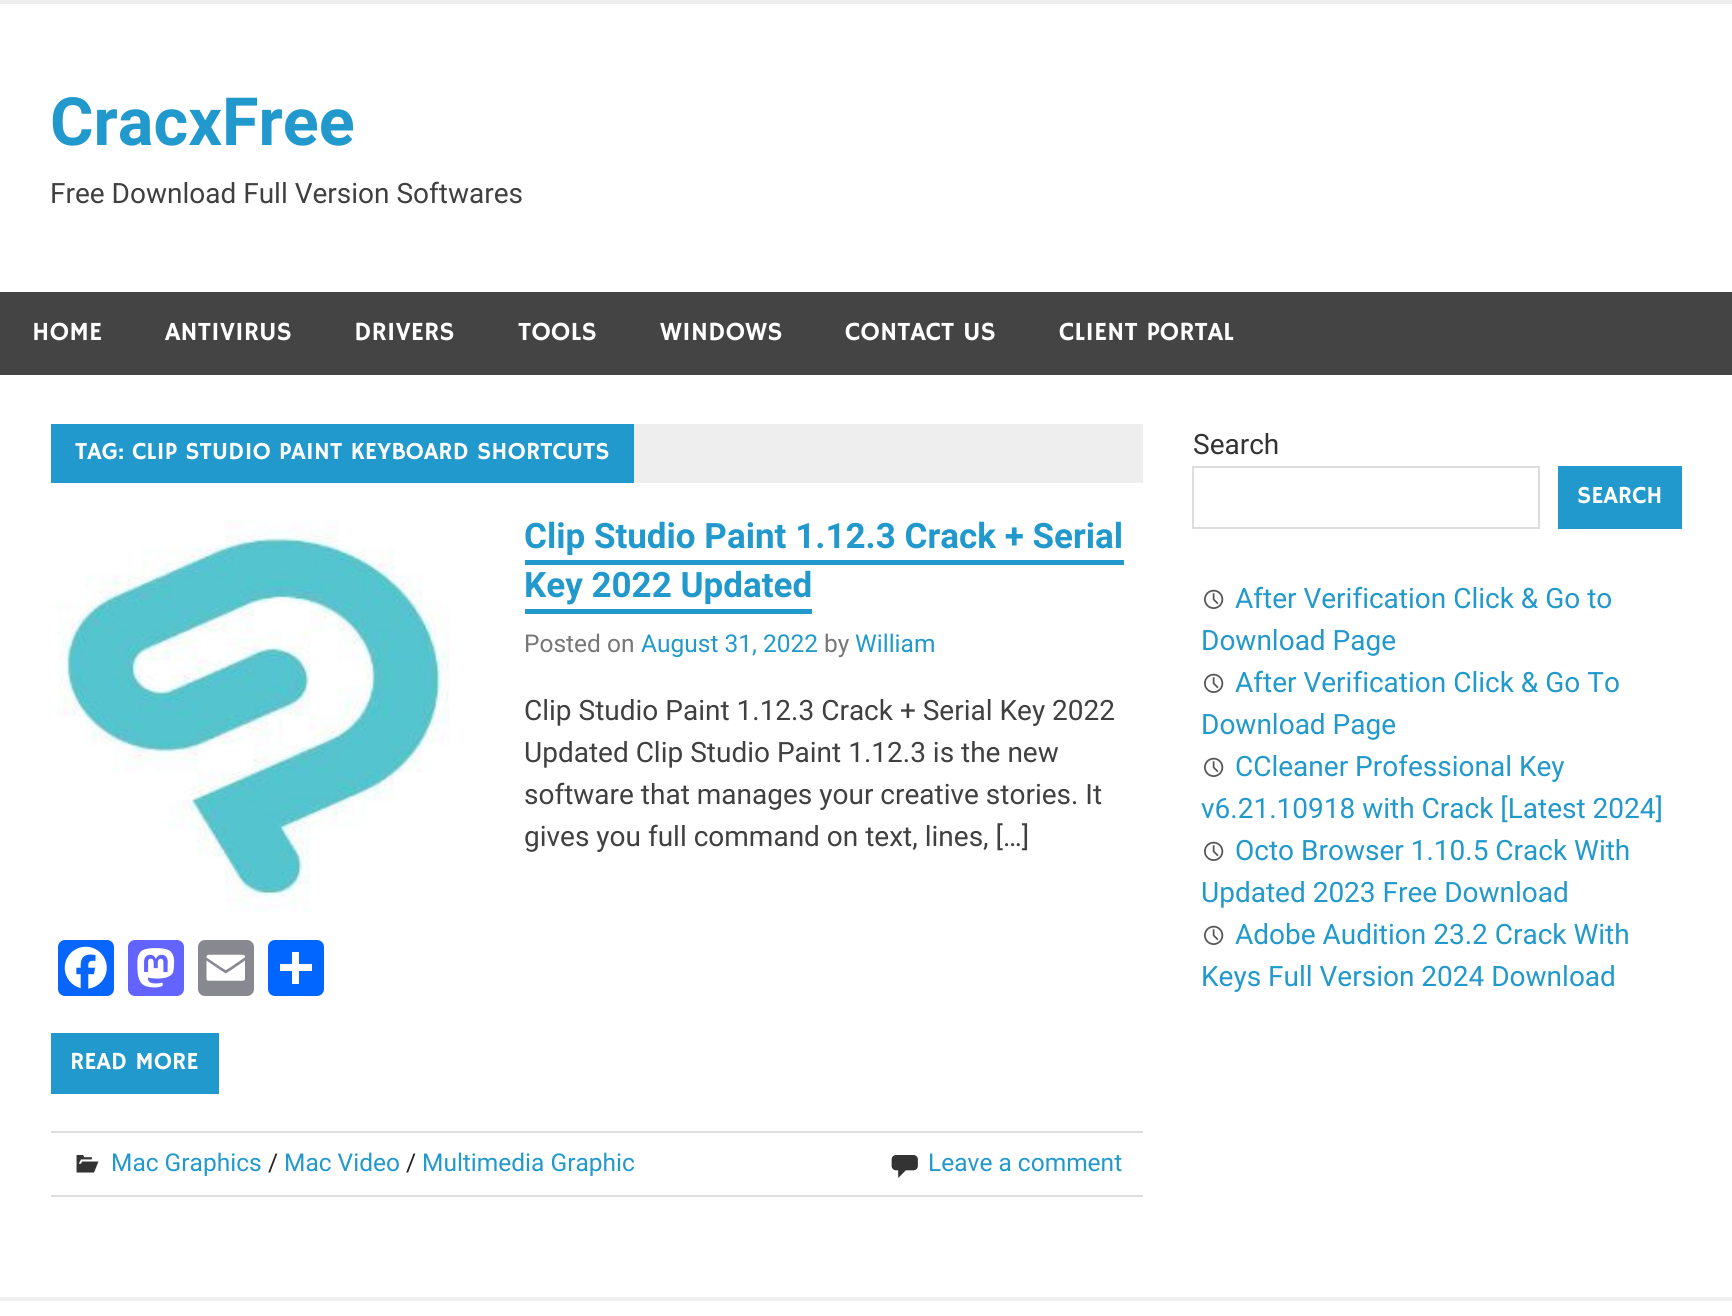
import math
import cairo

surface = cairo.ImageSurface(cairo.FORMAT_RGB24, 1732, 1316)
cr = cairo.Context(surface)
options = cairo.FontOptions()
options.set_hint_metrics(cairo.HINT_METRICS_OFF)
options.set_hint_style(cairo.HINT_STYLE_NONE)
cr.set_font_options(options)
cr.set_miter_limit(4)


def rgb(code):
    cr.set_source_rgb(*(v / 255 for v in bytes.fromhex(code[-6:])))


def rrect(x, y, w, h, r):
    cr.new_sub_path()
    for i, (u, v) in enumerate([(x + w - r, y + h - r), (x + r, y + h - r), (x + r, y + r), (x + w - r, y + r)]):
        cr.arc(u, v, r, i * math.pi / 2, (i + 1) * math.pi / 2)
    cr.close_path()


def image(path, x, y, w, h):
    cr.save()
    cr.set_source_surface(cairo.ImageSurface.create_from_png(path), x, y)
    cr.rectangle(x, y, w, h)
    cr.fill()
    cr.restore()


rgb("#ffffff")
cr.paint()
for x, y, w, h, color in [
    (0, 0, 1732, 4, "#eeeeee"),
    (0, 292, 1732, 83, "#444444"),
    (634, 424, 509, 59, "#eeeeee"),
    (51, 424, 583, 59, "#2299cc"),
]:
    rgb(color)
    cr.rectangle(x, y, w, h)
    cr.fill()
image("img/1.png", 57, 520, 393, 392)
cr.rectangle(525, 560, 599, 5)
cr.fill()
cr.rectangle(525, 609, 287, 5)
cr.fill()
rgb("#0866ff")
rrect(58, 940, 56, 56, 7)
cr.fill()
image("img/2.png", 64, 946, 43, 43)
rgb("#6364ff")
rrect(128, 940, 56, 56, 7)
cr.fill()
image("img/3.png", 137, 948, 38, 40)
rgb("#888990")
rrect(198, 940, 56, 56, 7)
cr.fill()
image("img/4.png", 206, 954, 39, 27)
rgb("#0166ff")
rrect(268, 940, 56, 56, 7)
cr.fill()
for x, y, w, h, color in [
    (292, 952, 7, 32, "#ffffff"),
    (280, 964, 32, 7, "#ffffff"),
    (51, 1033, 168, 61, "#2299cc"),
    (51, 1131, 1092, 2, "#dddddd"),
    (51, 1195, 1092, 2, "#dddddd"),
]:
    rgb(color)
    cr.rectangle(x, y, w, h)
    cr.fill()
image("img/5.png", 76, 1155, 23, 18)
image("img/6.png", 891, 1155, 27, 23)
cr.rectangle(1193, 467, 346, 61)
cr.stroke()
rgb("#2299cc")
cr.rectangle(1558, 466, 124, 63)
cr.fill()
image("img/7.png", 1204, 589, 20, 20)
image("img/7.png", 1204, 673, 20, 20)
image("img/7.png", 1204, 757, 20, 20)
image("img/7.png", 1204, 841, 20, 20)
image("img/7.png", 1204, 925, 20, 20)
rgb("#eeeeee")
cr.rectangle(0, 1297, 1732, 4)
cr.fill()
cr.select_font_face("Roboto", cairo.FONT_SLANT_NORMAL, cairo.FONT_WEIGHT_BOLD)
cr.set_font_size(66.5)
rgb("#2299cc")
cr.move_to(50, 145)
cr.show_text("CracxFree")
cr.select_font_face("Roboto")
cr.set_font_size(28)
rgb("#404040")
cr.move_to(50, 203)
cr.show_text("Free Download Full Version Softwares")
cr.select_font_face("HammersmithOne")
cr.set_font_size(26.25)
rgb("#ffffff")
for x, y, s in [
    (32, 340, "HOME"),
    (165, 340, "ANTIVIRUS"),
    (354, 340, "DRIVERS"),
    (518, 340, "TOOLS"),
    (660, 340, "WINDOWS"),
    (845, 340, "CONTACT US"),
    (1059, 340, "CLIENT PORTAL"),
]:
    cr.move_to(x, y)
    cr.show_text(s)
cr.set_font_size(24.5)
cr.move_to(75, 459)
cr.show_text("TAG: CLIP STUDIO PAINT KEYBOARD SHORTCUTS")
cr.select_font_face("Roboto", cairo.FONT_SLANT_NORMAL, cairo.FONT_WEIGHT_BOLD)
cr.set_font_size(35)
rgb("#2299cc")
cr.move_to(524, 548)
cr.show_text("Clip Studio Paint 1.12.3 Crack + Serial")
cr.move_to(524, 597)
cr.show_text("Key 2022 Updated")
cr.select_font_face("Roboto")
cr.set_font_size(24.5)
rgb("#777777")
cr.move_to(524, 652)
cr.show_text("Posted on")
rgb("#2299cc")
cr.move_to(641, 652)
cr.show_text("August 31, 2022")
rgb("#777777")
cr.move_to(824, 652)
cr.show_text("by")
rgb("#2299cc")
cr.move_to(855, 652)
cr.show_text("William")
cr.set_font_size(28)
rgb("#404040")
for x, y, s in [
    (524, 720, "Clip Studio Paint 1.12.3 Crack + Serial Key 2022"),
    (524, 762, "Updated Clip Studio Paint 1.12.3 is the new"),
    (524, 804, "software that manages your creative stories. It"),
    (524, 846, "gives you full command on text, lines, […]"),
]:
    cr.move_to(x, y)
    cr.show_text(s)
cr.select_font_face("HammersmithOne")
cr.set_font_size(24.5)
rgb("#ffffff")
cr.move_to(70, 1069)
cr.show_text("READ MORE")
cr.select_font_face("Roboto")
rgb("#2299cc")
cr.move_to(111, 1171)
cr.show_text("Mac Graphics")
rgb("#222222")
cr.move_to(268, 1171)
cr.show_text("/")
rgb("#2299cc")
cr.move_to(284, 1171)
cr.show_text("Mac Video")
rgb("#222222")
cr.move_to(406, 1171)
cr.show_text("/")
rgb("#2299cc")
cr.move_to(422, 1171)
cr.show_text("Multimedia Graphic")
cr.move_to(928, 1171)
cr.show_text("Leave a comment")
cr.set_font_size(28)
rgb("#333333")
cr.move_to(1193, 454)
cr.show_text("Search")
cr.select_font_face("HammersmithOne")
cr.set_font_size(24.5)
rgb("#ffffff")
cr.move_to(1577, 503)
cr.show_text("SEARCH")
cr.select_font_face("Roboto")
cr.set_font_size(28)
rgb("#2299cc")
for x, y, s in [
    (1235, 608, "After Verification Click & Go to"),
    (1201, 650, "Download Page"),
    (1235, 692, "After Verification Click & Go To"),
    (1201, 734, "Download Page"),
    (1235, 776, "CCleaner Professional Key"),
    (1201, 818, "v6.21.10918 with Crack [Latest 2024]"),
    (1235, 860, "Octo Browser 1.10.5 Crack With"),
    (1201, 902, "Updated 2023 Free Download"),
    (1235, 944, "Adobe Audition 23.2 Crack With"),
    (1201, 986, "Keys Full Version 2024 Download"),
]:
    cr.move_to(x, y)
    cr.show_text(s)
surface.write_to_png("page.png")
